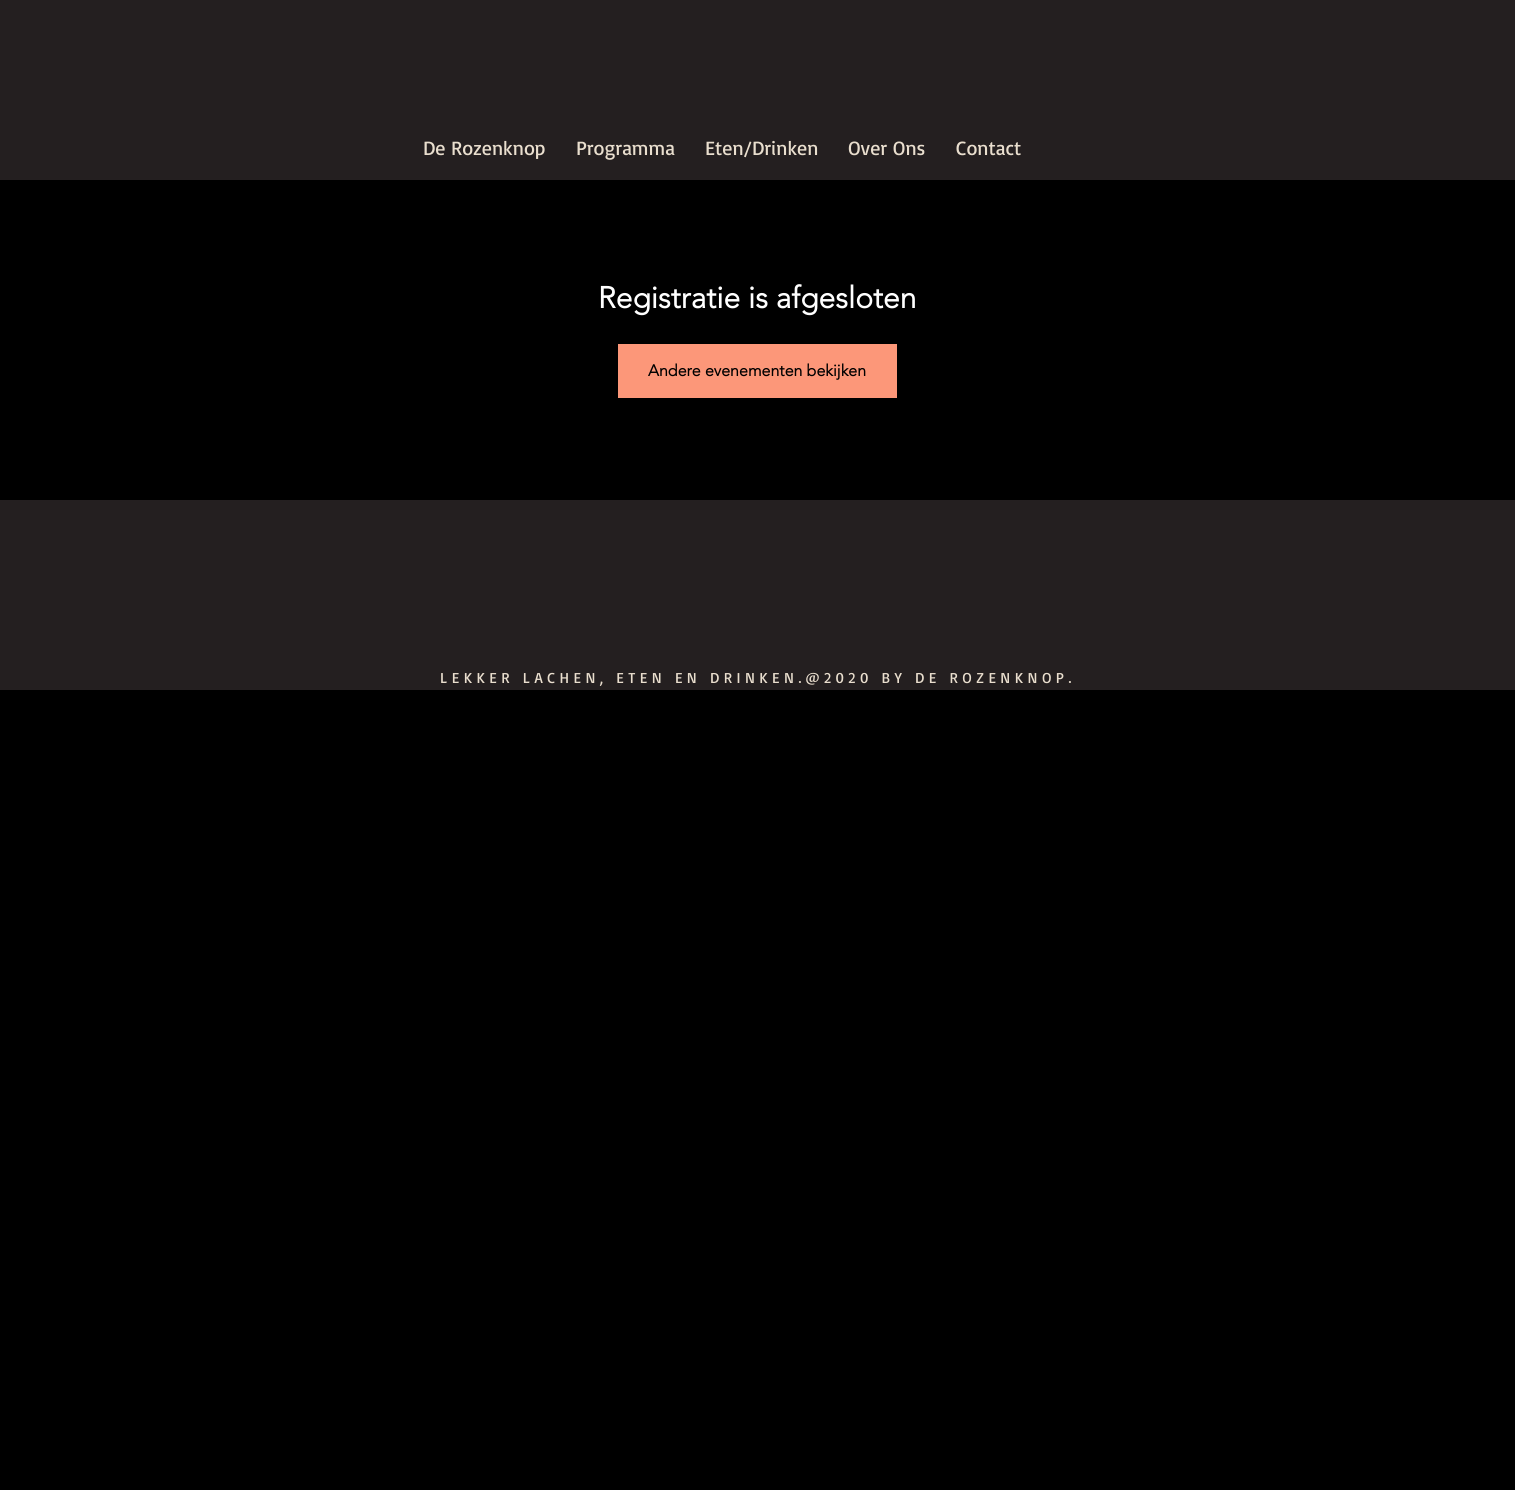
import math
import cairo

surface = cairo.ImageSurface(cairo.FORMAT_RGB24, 1515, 1490)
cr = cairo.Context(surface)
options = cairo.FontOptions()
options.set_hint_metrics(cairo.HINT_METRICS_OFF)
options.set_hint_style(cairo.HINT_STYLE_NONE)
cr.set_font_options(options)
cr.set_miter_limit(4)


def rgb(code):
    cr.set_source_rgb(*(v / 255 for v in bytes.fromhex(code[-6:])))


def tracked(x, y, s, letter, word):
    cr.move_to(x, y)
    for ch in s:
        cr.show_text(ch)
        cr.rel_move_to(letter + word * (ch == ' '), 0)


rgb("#000000")
cr.paint()
for x, y, w, h, color in [
    (0, 0, 1515, 180, "#241f20"),
    (618, 344, 279, 54, "#fc9779"),
    (0, 500, 1515, 190, "#241f20"),
]:
    rgb(color)
    cr.rectangle(x, y, w, h)
    cr.fill()
cr.select_font_face("Basic")
cr.set_font_size(20)
rgb("#e9dece")
for x, y, s in [
    (423, 155, "De Rozenknop"),
    (576, 155, "Programma"),
    (705, 155, "Eten/Drinken"),
    (848, 155, "Over Ons"),
    (956, 155, "Contact"),
]:
    cr.move_to(x, y)
    cr.show_text(s)
cr.select_font_face("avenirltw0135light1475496", cairo.FONT_SLANT_NORMAL, cairo.FONT_WEIGHT_BOLD)
cr.set_font_size(30)
rgb("#ffffff")
cr.move_to(598, 308)
cr.show_text("Registratie is afgesloten")
cr.set_font_size(16)
rgb("#000000")
cr.move_to(648, 376)
cr.show_text("Andere evenementen bekijken")
cr.select_font_face("Basic")
cr.set_font_size(15)
rgb("#e9dece")
tracked(440, 683, "LEKKER LACHEN, ETEN EN DRINKEN.@2020 BY DE ROZENKNOP.", 4.5, 0)
surface.write_to_png("page.png")
